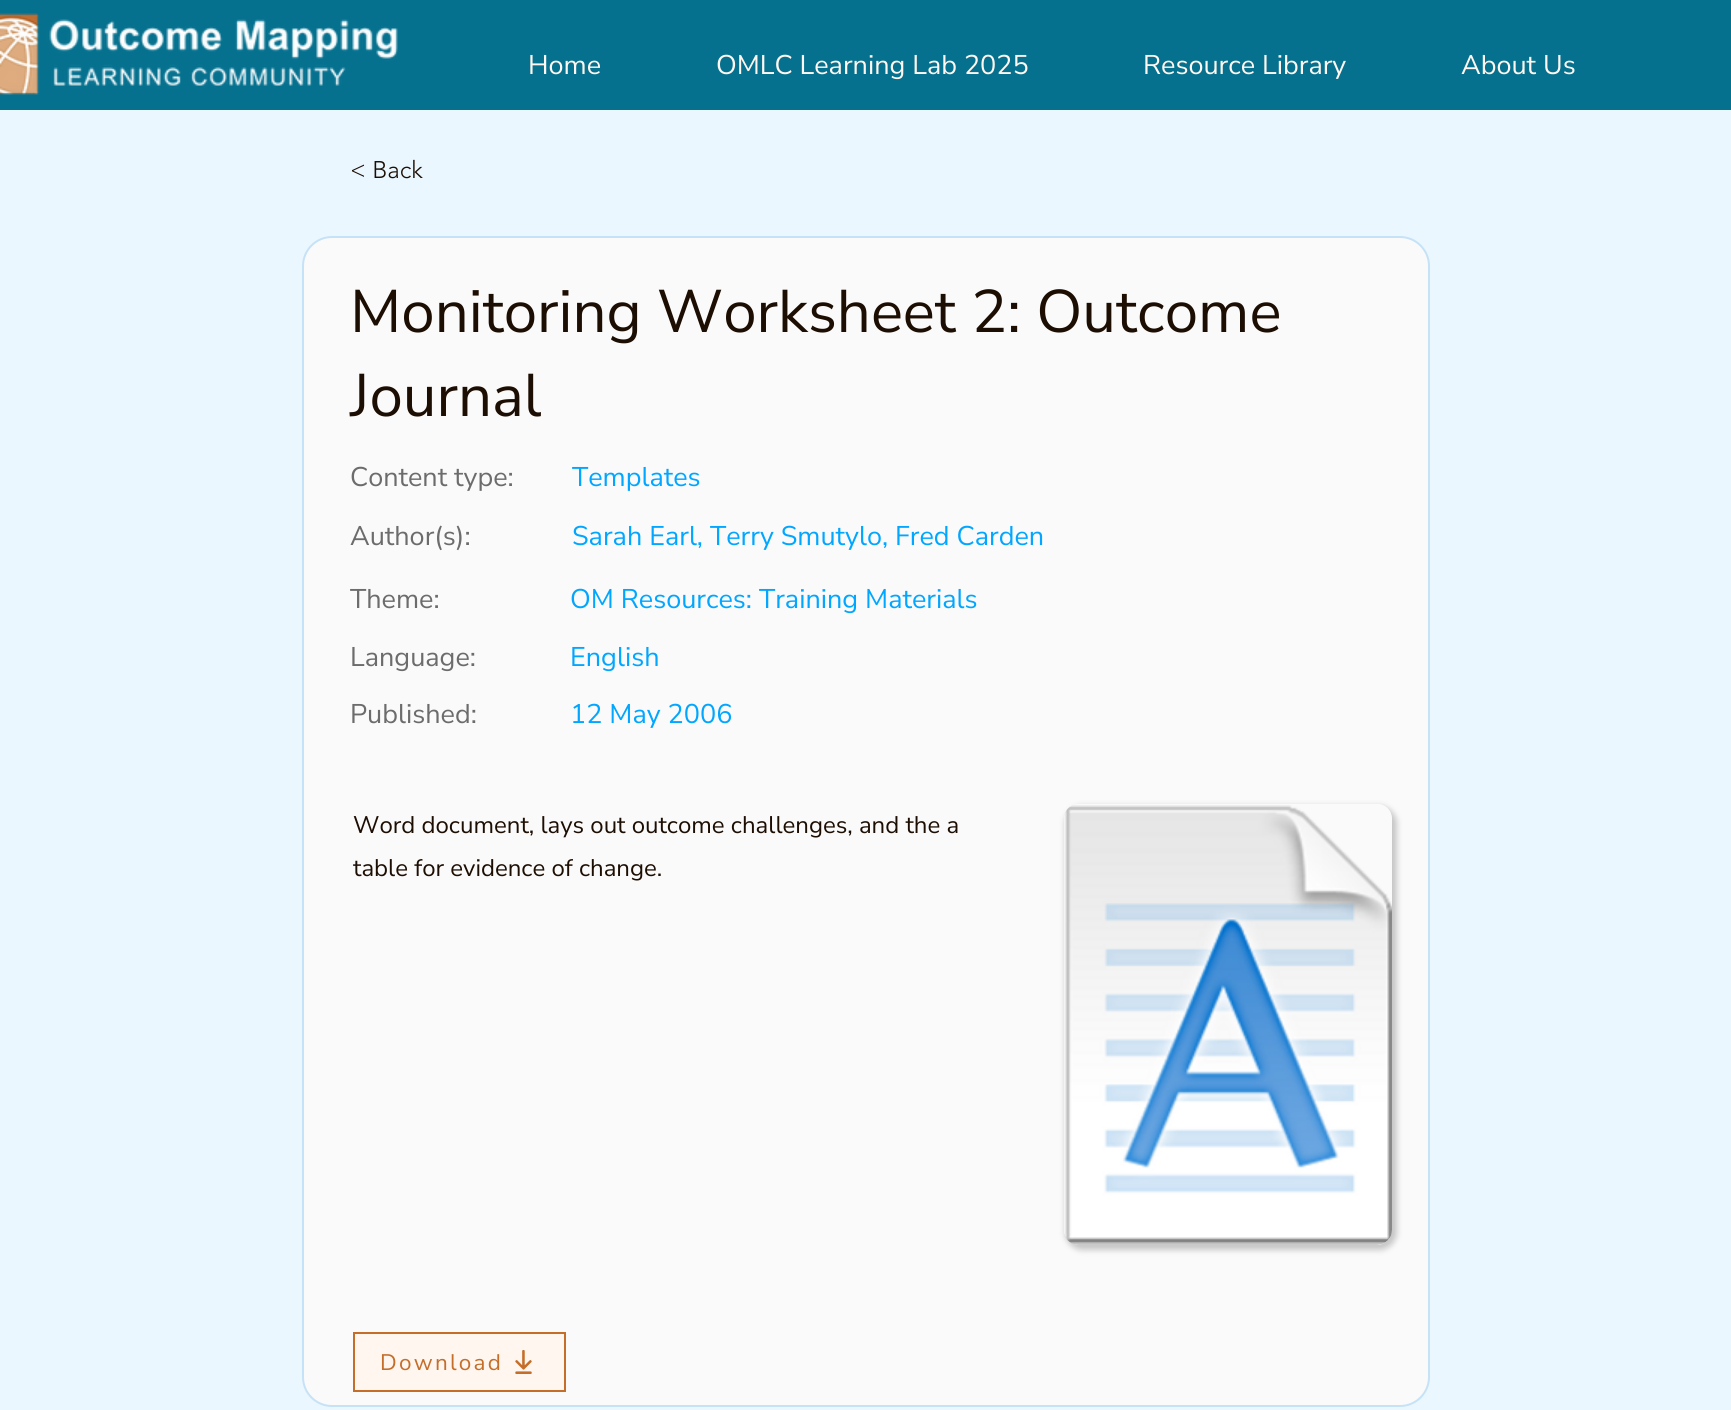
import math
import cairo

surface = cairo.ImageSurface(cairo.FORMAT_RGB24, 1731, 1410)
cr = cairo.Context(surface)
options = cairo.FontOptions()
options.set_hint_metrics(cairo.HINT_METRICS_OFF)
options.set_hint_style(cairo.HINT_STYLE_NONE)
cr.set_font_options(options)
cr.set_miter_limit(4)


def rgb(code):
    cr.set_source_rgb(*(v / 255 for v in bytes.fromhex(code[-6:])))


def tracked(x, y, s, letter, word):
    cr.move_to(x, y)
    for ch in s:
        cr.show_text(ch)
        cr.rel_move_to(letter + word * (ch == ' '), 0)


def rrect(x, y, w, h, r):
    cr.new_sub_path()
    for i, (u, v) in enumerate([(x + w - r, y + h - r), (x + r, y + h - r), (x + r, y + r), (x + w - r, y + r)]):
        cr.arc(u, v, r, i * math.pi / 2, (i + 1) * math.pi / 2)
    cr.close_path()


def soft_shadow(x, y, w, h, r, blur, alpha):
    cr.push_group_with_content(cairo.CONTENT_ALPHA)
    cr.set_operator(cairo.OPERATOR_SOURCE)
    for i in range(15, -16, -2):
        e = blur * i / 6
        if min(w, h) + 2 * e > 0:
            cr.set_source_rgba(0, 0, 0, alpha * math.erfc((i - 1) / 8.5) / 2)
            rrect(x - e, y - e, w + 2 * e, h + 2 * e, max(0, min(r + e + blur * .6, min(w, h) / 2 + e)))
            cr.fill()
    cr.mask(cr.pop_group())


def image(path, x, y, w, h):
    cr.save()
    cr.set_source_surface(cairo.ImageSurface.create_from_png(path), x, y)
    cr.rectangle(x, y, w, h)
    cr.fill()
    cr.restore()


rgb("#eaf7ff")
cr.paint()
rgb("#05718f")
cr.rectangle(0, 0, 1731, 110)
cr.fill()
image("img/1.png", 0, 13, 398, 82)
rgb("#fafafa")
rrect(303, 237, 1126, 1169, 29)
cr.fill_preserve()
rgb("#c6e2f7")
cr.stroke()
cr.save()
cr.set_fill_rule(cairo.FILL_RULE_EVEN_ODD)
cr.new_path()
cr.move_to(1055, 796)
cr.line_to(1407, 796)
cr.line_to(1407, 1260)
cr.line_to(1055, 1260)
cr.close_path()
cr.move_to(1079, 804)
cr.line_to(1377, 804)
cr.curve_to(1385.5, 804, 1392, 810.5, 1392, 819)
cr.line_to(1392, 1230)
cr.curve_to(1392, 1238.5, 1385.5, 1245, 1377, 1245)
cr.line_to(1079, 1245)
cr.curve_to(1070.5, 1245, 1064, 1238.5, 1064, 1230)
cr.line_to(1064, 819)
cr.curve_to(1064, 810.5, 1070.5, 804, 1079, 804)
cr.close_path()
cr.clip()
rgb("#000000")
soft_shadow(1065, 806, 332, 444, 17, 3, 0.21)
cr.restore()
image("img/2.png", 1064, 805, 328, 440)
rgb("#fff6ef")
cr.rectangle(354, 1333, 211, 58)
cr.fill_preserve()
rgb("#c56e2a")
cr.stroke()
image("img/3.png", 515, 1350, 17, 24)
cr.select_font_face("Nunito Sans")
cr.set_font_size(27)
rgb("#fff6ef")
for x, y, s in [
    (528, 74, "Home"),
    (716, 74, "OMLC Learning Lab 2025"),
    (1143, 74, "Resource Library"),
    (1461, 74, "About Us"),
]:
    cr.move_to(x, y)
    cr.show_text(s)
cr.select_font_face("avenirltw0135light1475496 Light")
cr.set_font_size(24)
rgb("#1d0e03")
cr.move_to(350, 178)
cr.show_text("< Back")
cr.select_font_face("Nunito Sans")
cr.set_font_size(60)
cr.move_to(350, 332)
cr.show_text("Monitoring Worksheet 2: Outcome")
cr.move_to(350, 416)
cr.show_text("Journal")
cr.set_font_size(27)
rgb("#6c6c6c")
cr.move_to(350, 486)
cr.show_text("Content type:")
rgb("#00a6ff")
cr.move_to(572, 486)
cr.show_text("Templates")
rgb("#6c6c6c")
cr.move_to(350, 545)
cr.show_text("Author(s):")
rgb("#00a6ff")
cr.move_to(572, 545)
cr.show_text("Sarah Earl, Terry Smutylo, Fred Carden")
rgb("#6c6c6c")
cr.move_to(350, 608)
cr.show_text("Theme:")
rgb("#00a6ff")
cr.move_to(570, 608)
cr.show_text("OM Resources: Training Materials")
rgb("#6c6c6c")
cr.move_to(350, 666)
cr.show_text("Language:")
rgb("#00a6ff")
cr.move_to(570, 666)
cr.show_text("English")
rgb("#6c6c6c")
cr.move_to(350, 723)
cr.show_text("Published:")
rgb("#00a6ff")
cr.move_to(570, 723)
cr.show_text("12 May 2006")
cr.set_font_size(24)
rgb("#1d0e03")
cr.move_to(353, 833)
cr.show_text("Word document, lays out outcome challenges, and the a")
cr.move_to(353, 876)
cr.show_text("table for evidence of change.")
cr.set_font_size(22.5)
rgb("#c56e2a")
tracked(380, 1370, "Download", 2.25, 0)
surface.write_to_png("page.png")
